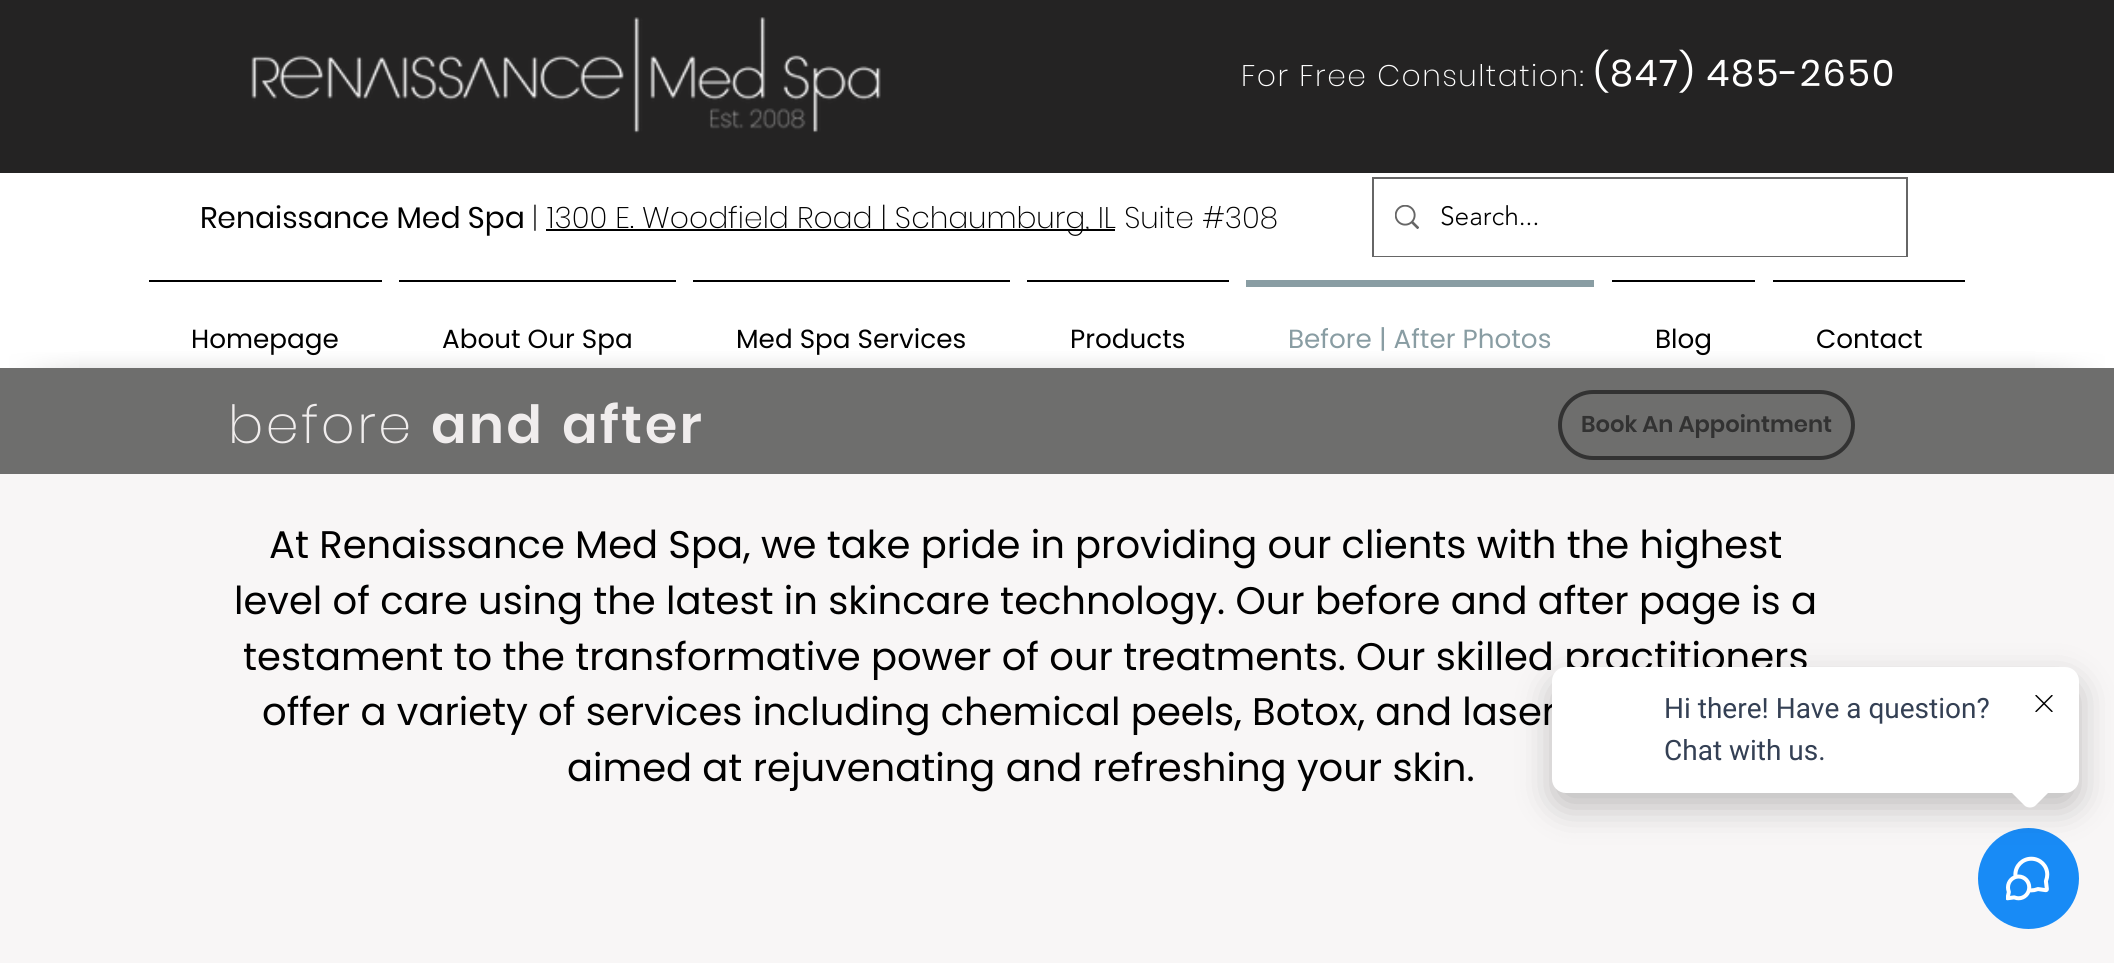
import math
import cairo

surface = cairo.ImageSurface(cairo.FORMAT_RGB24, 2114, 963)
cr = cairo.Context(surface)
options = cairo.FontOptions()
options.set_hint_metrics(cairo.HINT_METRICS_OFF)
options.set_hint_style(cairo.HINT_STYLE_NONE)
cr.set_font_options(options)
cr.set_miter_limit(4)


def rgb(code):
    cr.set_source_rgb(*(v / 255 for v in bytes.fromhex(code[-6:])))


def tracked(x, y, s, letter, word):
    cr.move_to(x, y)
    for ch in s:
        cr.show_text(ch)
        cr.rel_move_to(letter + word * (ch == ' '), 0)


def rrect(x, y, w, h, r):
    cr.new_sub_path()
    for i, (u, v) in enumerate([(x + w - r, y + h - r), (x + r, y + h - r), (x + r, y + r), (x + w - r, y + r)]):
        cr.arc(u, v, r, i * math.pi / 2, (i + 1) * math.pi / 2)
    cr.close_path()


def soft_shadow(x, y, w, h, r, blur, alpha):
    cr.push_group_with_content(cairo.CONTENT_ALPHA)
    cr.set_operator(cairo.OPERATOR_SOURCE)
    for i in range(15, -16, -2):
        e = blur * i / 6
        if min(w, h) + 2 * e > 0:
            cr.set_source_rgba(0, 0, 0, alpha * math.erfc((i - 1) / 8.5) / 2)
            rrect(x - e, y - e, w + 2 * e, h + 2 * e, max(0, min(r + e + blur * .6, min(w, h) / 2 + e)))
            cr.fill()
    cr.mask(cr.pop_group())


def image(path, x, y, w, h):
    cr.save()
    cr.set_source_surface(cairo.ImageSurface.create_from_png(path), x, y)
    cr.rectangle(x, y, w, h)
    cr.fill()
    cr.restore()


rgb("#ffffff")
cr.paint()
rgb("#242323")
cr.rectangle(0, 0, 2114, 173)
cr.fill()
image("img/1.png", 251, 17, 630, 117)
rgb("#000000")
cr.rectangle(546, 229, 569, 2)
cr.fill()
cr.rectangle(1373, 178, 534, 78)
rgb("#666666")
cr.stroke()
rgb("#ffffff")
cr.rectangle(1374, 255, 532, 1)
cr.fill()
image("img/2.png", 1395, 205, 24, 24)
for x, y, w, h, color in [
    (149, 280, 233, 2, "#000000"),
    (399, 280, 277, 2, "#000000"),
    (693, 280, 317, 2, "#000000"),
    (1027, 280, 202, 2, "#000000"),
    (1246, 280, 348, 7, "#899da3"),
    (1612, 280, 143, 2, "#000000"),
    (1773, 280, 192, 2, "#000000"),
]:
    rgb(color)
    cr.rectangle(x, y, w, h)
    cr.fill()
image("img/3.png", 78, 351, 1958, 17)
image("img/4.png", 9, 352, 70, 16)
image("img/5.png", 2035, 352, 70, 16)
cr.set_source_rgba(1, 1, 1, 0.75)
cr.rectangle(9, 351, 2096, 17)
cr.fill()
rgb("#6e6e6d")
cr.rectangle(0, 368, 2114, 106)
cr.fill()
rrect(1560, 392, 293, 66, 33)
rgb("#323232")
cr.set_line_width(4)
cr.stroke()
rgb("#f8f6f6")
cr.rectangle(0, 474, 2114, 489)
cr.fill()
rgb("#188bf6")
cr.arc(2028.5, 878.5, 50.5, 0, 2 * math.pi)
cr.fill()
image("img/7.png", 2006, 856, 44, 45)
rgb("#000000")
soft_shadow(1552, 681, 527, 126, 14, 17.5, 0.24)
cr.select_font_face("Poppins ExtraLight")
cr.set_font_size(29.75)
rgb("#ffffff")
tracked(1241, 86, "For Free Consultation:", 1.5, 0)
cr.select_font_face("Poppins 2")
cr.set_font_size(36.75)
tracked(1594, 86, "(847) 485-2650", 1.8, 0)
cr.set_font_size(29.75)
rgb("#000000")
cr.move_to(200, 228)
cr.show_text("Renaissance Med Spa")
cr.select_font_face("Poppins ExtraLight")
cr.move_to(532, 228)
cr.show_text("|")
cr.move_to(547, 228)
cr.show_text("1300 E. Woodfield Road | Schaumburg, IL Suite #308")
cr.select_font_face("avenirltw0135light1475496 Light")
cr.set_font_size(26.25)
cr.move_to(1440, 225)
cr.show_text("Search...")
cr.select_font_face("Poppins")
for x, y, s in [
    (191, 348, "Homepage"),
    (442, 348, "About Our Spa"),
    (736, 348, "Med Spa Services"),
    (1070, 348, "Products"),
]:
    cr.move_to(x, y)
    cr.show_text(s)
rgb("#899da3")
cr.move_to(1288, 348)
cr.show_text("Before | After Photos")
rgb("#000000")
cr.move_to(1655, 348)
cr.show_text("Blog")
cr.move_to(1816, 348)
cr.show_text("Contact")
cr.select_font_face("Poppins ExtraLight")
cr.set_font_size(52.5)
rgb("#f0eded")
tracked(228, 443, "before", 2.5, 0)
cr.select_font_face("Poppins SemiBold")
tracked(431, 443, "and", 2.5, 0)
tracked(562, 443, "after", 2.5, 0)
cr.set_font_size(22.75)
rgb("#323232")
cr.move_to(1581, 432)
cr.show_text("Book An Appointment")
cr.select_font_face("Poppins")
cr.set_font_size(38.5)
rgb("#000000")
for x, y, s in [
    (269, 558, "At Renaissance Med Spa, we take pride in providing our clients with the highest"),
    (234, 614, "level of care using the latest in skincare technology. Our before and after page is a"),
    (243, 670, "testament to the transformative power of our treatments. Our skilled practitioners"),
    (262, 725, "offer a variety of services including chemical peels, Botox, and laser"),
    (567, 781, "aimed at rejuvenating and refreshing your skin."),
]:
    cr.move_to(x, y)
    cr.show_text(s)
rgb("#ffffff")
rrect(1552, 667, 527, 126, 14)
cr.fill()
cr.select_font_face("Roboto")
cr.set_font_size(28)
rgb("#344054")
cr.move_to(1664, 718)
cr.show_text("Hi there! Have a question?")
cr.move_to(1664, 760)
cr.show_text("Chat with us.")
rgb("#ffffff")
cr.new_path()
cr.move_to(2035, 766)
cr.line_to(2050, 781)
cr.curve_to(2053, 784, 2053, 788, 2050, 791)
cr.line_to(2035, 806)
cr.curve_to(2032, 808, 2028, 808, 2025, 806)
cr.line_to(2010, 791)
cr.curve_to(2007, 788, 2007, 784, 2010, 781)
cr.line_to(2025, 766)
cr.curve_to(2028, 763, 2032, 763, 2035, 766)
cr.close_path()
cr.fill()
image("img/6.png", 2035, 695, 18, 17)
surface.write_to_png("page.png")
